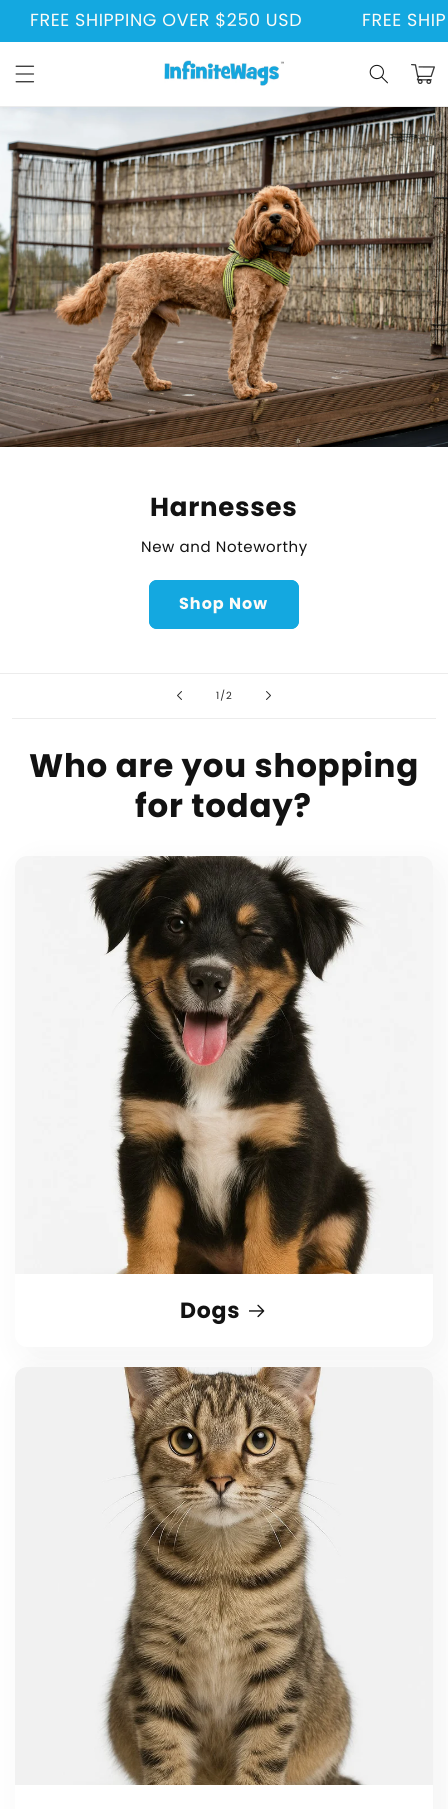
import math
import cairo

surface = cairo.ImageSurface(cairo.FORMAT_RGB24, 448, 1809)
cr = cairo.Context(surface)
options = cairo.FontOptions()
options.set_hint_metrics(cairo.HINT_METRICS_OFF)
options.set_hint_style(cairo.HINT_STYLE_NONE)
cr.set_font_options(options)
cr.set_miter_limit(4)


def rgb(code):
    cr.set_source_rgb(*(v / 255 for v in bytes.fromhex(code[-6:])))


def tracked(x, y, s, letter, word):
    cr.move_to(x, y)
    for ch in s:
        cr.show_text(ch)
        cr.rel_move_to(letter + word * (ch == ' '), 0)


def rrect(x, y, w, h, r):
    cr.new_sub_path()
    for i, (u, v) in enumerate([(x + w - r, y + h - r), (x + r, y + h - r), (x + r, y + r), (x + w - r, y + r)]):
        cr.arc(u, v, r, i * math.pi / 2, (i + 1) * math.pi / 2)
    cr.close_path()


def soft_shadow(x, y, w, h, r, blur, alpha):
    cr.push_group_with_content(cairo.CONTENT_ALPHA)
    cr.set_operator(cairo.OPERATOR_SOURCE)
    for i in range(15, -16, -2):
        e = blur * i / 6
        if min(w, h) + 2 * e > 0:
            cr.set_source_rgba(0, 0, 0, alpha * math.erfc((i - 1) / 8.5) / 2)
            rrect(x - e, y - e, w + 2 * e, h + 2 * e, max(0, min(r + e + blur * .6, min(w, h) / 2 + e)))
            cr.fill()
    cr.mask(cr.pop_group())


def image(path, x, y, w, h):
    cr.save()
    cr.set_source_surface(cairo.ImageSurface.create_from_png(path), x, y)
    cr.rectangle(x, y, w, h)
    cr.fill()
    cr.restore()


rgb("#ffffff")
cr.paint()
rgb("#14a8e0")
cr.rectangle(0, 0, 448, 42)
cr.fill()
rgb("#ececec")
cr.rectangle(0, 106, 448, 1)
cr.fill()
image("img/1.png", 15, 65, 20, 18)
image("img/2.png", 164, 60, 120, 26)
image("img/3.png", 369, 64, 19, 20)
image("img/4.png", 411, 64, 24, 20)
image("img/5.png", 0, 107, 448, 340)
rgb("#14a8e0")
rrect(149, 580, 150, 49, 8)
cr.fill()
rrect(150, 581, 148, 47, 7)
cr.stroke()
rgb("#ececec")
cr.rectangle(0, 673, 448, 1)
cr.fill()
cr.rectangle(12, 718, 424, 1)
cr.fill()
image("img/6.png", 177, 691, 5, 9)
image("img/7.png", 266, 691, 5, 9)
rgb("#121212")
soft_shadow(25, 866, 418, 491, 12, 17.5, 0.05)
soft_shadow(25, 1377, 418, 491, 12, 17.5, 0.05)
rgb("#ffffff")
rrect(15, 856, 418, 491, 12)
cr.fill()
image("img/8.png", 15, 856, 418, 418)
image("img/9.png", 249, 1304, 16, 14)
rrect(15, 1367, 418, 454, 12)
cr.fill()
image("img/10.png", 15, 1367, 418, 418)
cr.select_font_face("Poppins")
cr.set_font_size(17.5)
rgb("#fdfbf7")
tracked(30, 26, "FREE SHIPPING OVER $250 USD", 0.6, 0)
tracked(362, 26, "FREE SHIP", 0.6, 0)
cr.select_font_face("Poppins", cairo.FONT_SLANT_NORMAL, cairo.FONT_WEIGHT_BOLD)
cr.set_font_size(26)
rgb("#121212")
tracked(150, 516, "Harnesses", 0.75, 0)
cr.select_font_face("Poppins")
cr.set_font_size(15)
tracked(141, 552, "New and Noteworthy", 0.6, 0)
cr.select_font_face("Poppins", cairo.FONT_SLANT_NORMAL, cairo.FONT_WEIGHT_BOLD)
cr.set_font_size(16)
rgb("#fdfbf7")
tracked(179, 609, "Shop Now", 1, 0)
cr.select_font_face("Poppins")
cr.set_font_size(10)
rgb("#2a2a2a")
tracked(216, 699, "1/2", 1, 0)
cr.select_font_face("Poppins", cairo.FONT_SLANT_NORMAL, cairo.FONT_WEIGHT_BOLD)
cr.set_font_size(32.5)
rgb("#121212")
tracked(29, 777, "Who are you shopping", 0.75, 0)
tracked(135, 817, "for today?", 0.75, 0)
cr.set_font_size(22)
tracked(180, 1318, "Dogs", 0.75, 0)
surface.write_to_png("page.png")
